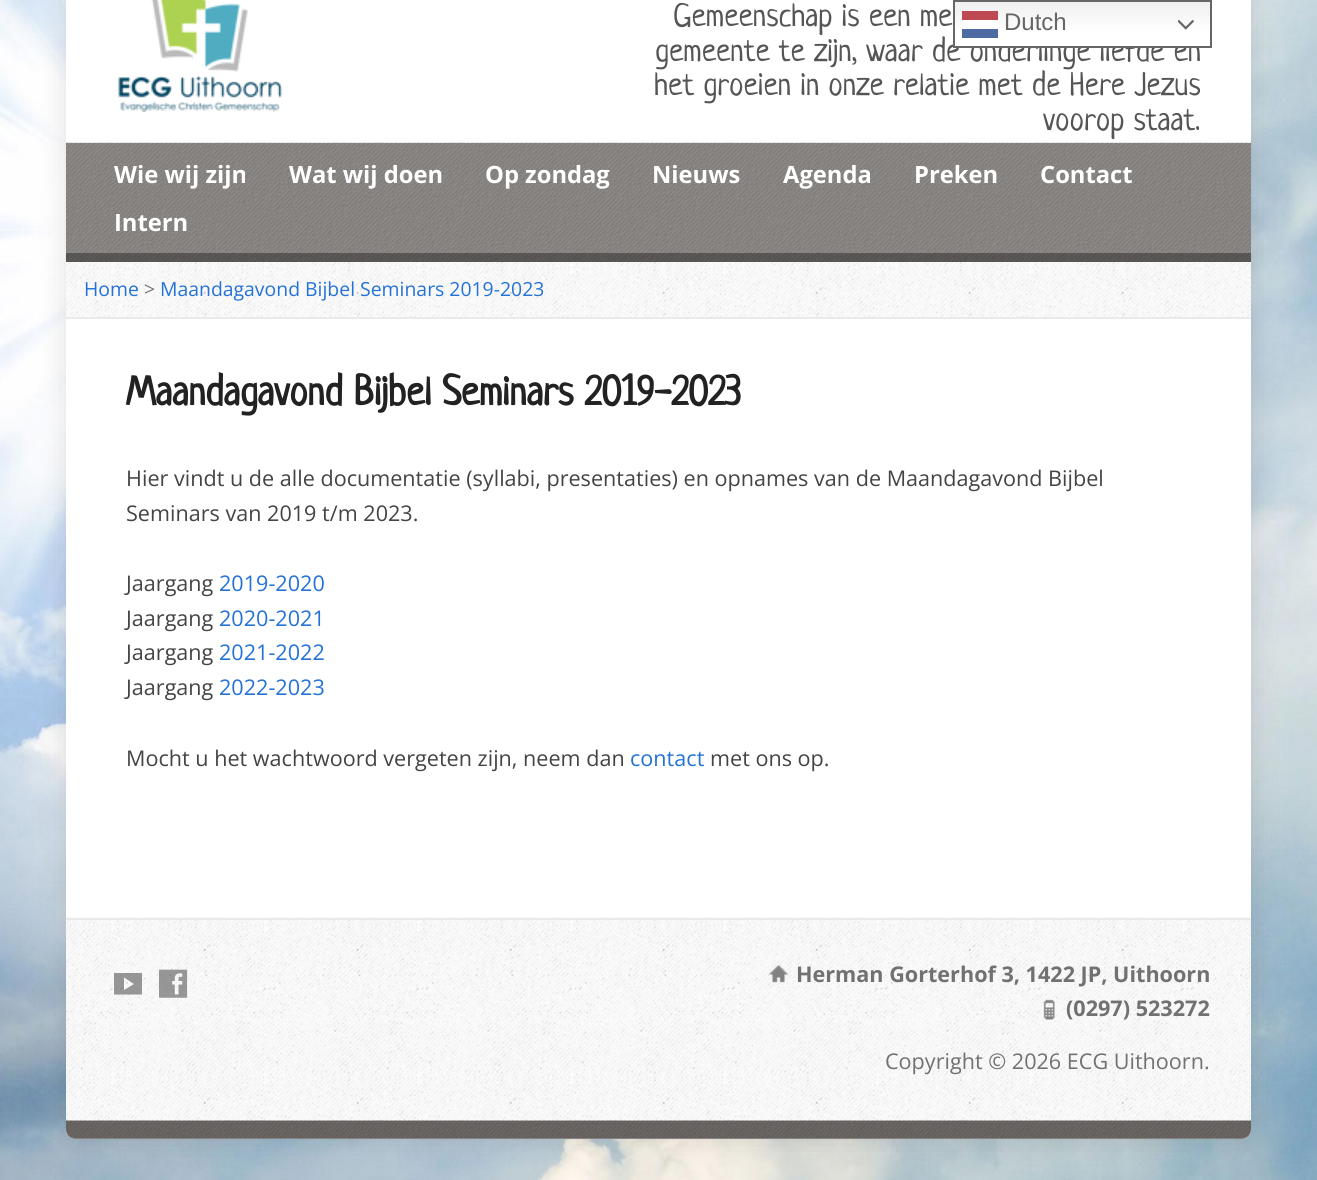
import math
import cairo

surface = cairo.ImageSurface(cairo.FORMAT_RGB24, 1317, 1180)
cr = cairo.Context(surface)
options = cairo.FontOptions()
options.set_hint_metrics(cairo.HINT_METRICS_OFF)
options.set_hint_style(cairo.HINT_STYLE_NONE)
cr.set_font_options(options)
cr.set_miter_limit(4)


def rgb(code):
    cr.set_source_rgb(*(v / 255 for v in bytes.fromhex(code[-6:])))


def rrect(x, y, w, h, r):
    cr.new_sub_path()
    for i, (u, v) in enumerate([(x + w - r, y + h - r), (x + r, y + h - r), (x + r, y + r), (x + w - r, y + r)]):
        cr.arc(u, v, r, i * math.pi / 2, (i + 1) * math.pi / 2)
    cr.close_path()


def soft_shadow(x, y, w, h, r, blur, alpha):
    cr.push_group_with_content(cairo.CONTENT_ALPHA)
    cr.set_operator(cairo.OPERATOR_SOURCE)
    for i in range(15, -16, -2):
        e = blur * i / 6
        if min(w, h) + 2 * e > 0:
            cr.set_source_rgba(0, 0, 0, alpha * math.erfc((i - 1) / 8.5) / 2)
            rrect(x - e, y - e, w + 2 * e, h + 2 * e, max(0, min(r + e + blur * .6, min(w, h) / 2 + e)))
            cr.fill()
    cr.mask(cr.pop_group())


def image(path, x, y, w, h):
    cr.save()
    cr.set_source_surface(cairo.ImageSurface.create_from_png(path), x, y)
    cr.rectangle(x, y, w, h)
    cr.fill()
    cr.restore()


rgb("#ffffff")
cr.paint()
image("img/1.png", 0, 0, 1317, 1180)
rgb("#000000")
soft_shadow(66, -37, 1185, 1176, 9, 15, 0.12)
rgb("#ffffff")
rrect(66, -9, 1185, 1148, 9)
cr.fill()
image("img/2.png", 118, 0, 165, 112)
rgb("#87827f")
cr.rectangle(66, 143, 1185, 119)
cr.fill()
image("img/3.png", 66, 142, 1185, 120)
cr.set_source_rgba(0, 0, 0, 0.35)
cr.rectangle(66, 253, 1185, 9)
cr.fill()
image("img/4.png", 66, 262, 1185, 55)
rgb("#eaeaea")
cr.rectangle(66, 317, 1185, 2)
cr.fill()
image("img/5.png", 66, 917, 1185, 203)
cr.rectangle(66, 918, 1185, 2)
cr.fill()
cr.set_source_rgba(0.333, 0.333, 0.333, 0.6)
cr.new_path()
cr.move_to(142, 994.5)
cr.line_to(114, 994.5)
cr.line_to(114, 973)
cr.line_to(142, 973)
cr.close_path()
cr.move_to(124, 990)
cr.line_to(134, 984)
cr.line_to(124, 977.5)
cr.close_path()
cr.fill()
image("img/6.png", 159, 969, 29, 29)
image("img/7.png", 769, 965, 19, 18)
image("img/8.png", 1043, 999, 12, 21)
rgb("#87827f")
cr.new_path()
cr.move_to(66, 1121)
cr.line_to(1251, 1121)
cr.line_to(1251, 1130)
cr.curve_to(1251, 1135, 1247, 1139, 1242, 1139)
cr.line_to(75, 1139)
cr.curve_to(70, 1139, 66, 1135, 66, 1130)
cr.close_path()
cr.fill()
image("img/9.png", 66, 1120, 1185, 18)
cr.select_font_face("Neucha")
cr.set_font_size(32.4)
rgb("#555555")
for x, y, s in [
    (673, 26, "Gemeenschap is een me"),
    (655, 61, "gemeente te zijn, waar de onderlinge liefde en"),
    (654, 95, "het groeien in onze relatie met de Here Jezus"),
    (1043, 130, "voorop staat."),
]:
    cr.move_to(x, y)
    cr.show_text(s)
cr.select_font_face("Open Sans", cairo.FONT_SLANT_NORMAL, cairo.FONT_WEIGHT_BOLD)
cr.set_font_size(23.75)
rgb("#ffffff")
for x, y, s in [
    (114, 183, "Wie wij zijn"),
    (289, 183, "Wat wij doen"),
    (485, 183, "Op zondag"),
    (652, 183, "Nieuws"),
    (783, 183, "Agenda"),
    (914, 183, "Preken"),
    (1040, 183, "Contact"),
    (114, 231, "Intern"),
]:
    cr.move_to(x, y)
    cr.show_text(s)
cr.select_font_face("Open Sans")
cr.set_font_size(19.4)
rgb("#2472d8")
cr.move_to(84, 296)
cr.show_text("Home")
rgb("#777777")
cr.move_to(144, 296)
cr.show_text(">")
rgb("#2472d8")
cr.move_to(160, 296)
cr.show_text("Maandagavond Bijbel Seminars 2019-2023")
cr.select_font_face("Neucha", cairo.FONT_SLANT_NORMAL, cairo.FONT_WEIGHT_BOLD)
cr.set_font_size(41)
rgb("#222222")
cr.move_to(126, 405)
cr.show_text("Maandagavond Bijbel Seminars 2019-2023")
cr.select_font_face("Open Sans")
cr.set_font_size(21.6)
rgb("#444444")
for x, y, s in [
    (126, 486, "Hier vindt u de alle documentatie (syllabi, presentaties) en opnames van de Maandagavond Bijbel"),
    (126, 521, "Seminars van 2019 t/m 2023."),
    (126, 591, "Jaargang"),
]:
    cr.move_to(x, y)
    cr.show_text(s)
rgb("#2472d8")
cr.move_to(219, 591)
cr.show_text("2019-2020")
rgb("#444444")
cr.move_to(126, 626)
cr.show_text("Jaargang")
rgb("#2472d8")
cr.move_to(219, 626)
cr.show_text("2020-2021")
rgb("#444444")
cr.move_to(126, 660)
cr.show_text("Jaargang")
rgb("#2472d8")
cr.move_to(219, 660)
cr.show_text("2021-2022")
rgb("#444444")
cr.move_to(126, 695)
cr.show_text("Jaargang")
rgb("#2472d8")
cr.move_to(219, 695)
cr.show_text("2022-2023")
rgb("#444444")
cr.move_to(126, 766)
cr.show_text("Mocht u het wachtwoord vergeten zijn, neem dan")
rgb("#2472d8")
cr.move_to(630, 766)
cr.show_text("contact")
rgb("#444444")
cr.move_to(710, 766)
cr.show_text("met ons op.")
cr.select_font_face("Open Sans", cairo.FONT_SLANT_NORMAL, cairo.FONT_WEIGHT_BOLD)
rgb("#717171")
cr.move_to(796, 982)
cr.show_text("Herman Gorterhof 3, 1422 JP, Uithoorn")
cr.move_to(1066, 1016)
cr.show_text("(0297) 523272")
cr.select_font_face("Open Sans")
cr.move_to(885, 1069)
cr.show_text("Copyright © 2026 ECG Uithoorn.")
gradient = cairo.LinearGradient(1082, 0, 1082, 48)
gradient.add_color_stop_rgba(0, 0.937, 0.937, 0.937, 1)
gradient.add_color_stop_rgba(0.7, 1, 1, 1, 1)
cr.set_source(gradient)
cr.rectangle(955, 2, 255, 44)
cr.fill()
cr.rectangle(954, 1, 257, 46)
rgb("#666666")
cr.stroke()
rgb("#be4953")
cr.rectangle(962, 11, 36, 9)
cr.fill()
cr.select_font_face("Liberation Sans")
cr.set_font_size(24)
rgb("#666666")
cr.move_to(1004, 30)
cr.show_text("Dutch")
cr.set_source_rgba(1, 1, 1, 0.8)
cr.rectangle(962, 20, 36, 6)
cr.fill()
image("img/10.png", 1178, 20, 16, 10)
rgb("#4d6ba2")
cr.rectangle(962, 29, 36, 9)
cr.fill()
surface.write_to_png("page.png")
